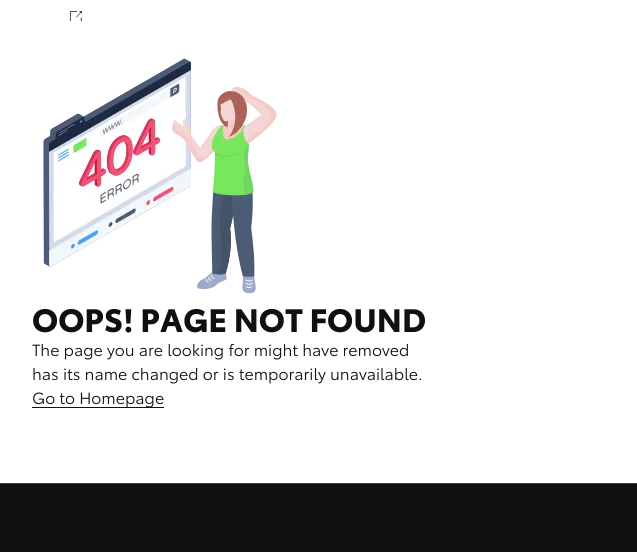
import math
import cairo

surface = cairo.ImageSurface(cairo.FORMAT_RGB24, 637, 552)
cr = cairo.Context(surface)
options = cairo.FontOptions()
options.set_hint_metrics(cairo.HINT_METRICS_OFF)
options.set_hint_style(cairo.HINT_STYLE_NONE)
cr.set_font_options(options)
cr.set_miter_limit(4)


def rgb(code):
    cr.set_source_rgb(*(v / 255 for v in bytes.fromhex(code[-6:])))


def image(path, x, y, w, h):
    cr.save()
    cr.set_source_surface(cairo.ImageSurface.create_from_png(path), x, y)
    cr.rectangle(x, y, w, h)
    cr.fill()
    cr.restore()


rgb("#ffffff")
cr.paint()
image("img/1.png", 70, 11, 12, 10)
image("img/2.png", 43, 58, 234, 236)
for x, y, w, h, color in [
    (32, 407, 132, 1, "#101010"),
    (0, 484, 637, 68, "#101010"),
    (0, 483, 637, 1, "#404040"),
]:
    rgb(color)
    cr.rectangle(x, y, w, h)
    cr.fill()
cr.select_font_face("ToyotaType", cairo.FONT_SLANT_NORMAL, cairo.FONT_WEIGHT_BOLD)
cr.set_font_size(32)
rgb("#101010")
cr.move_to(32, 332)
cr.show_text("OOPS! PAGE NOT FOUND")
cr.select_font_face("Toyota Type")
cr.set_font_size(16)
for x, y, s in [
    (32, 356, "The page you are looking for might have removed"),
    (32, 380, "has its name changed or is temporarily unavailable."),
    (32, 404, "Go to Homepage"),
]:
    cr.move_to(x, y)
    cr.show_text(s)
surface.write_to_png("page.png")
